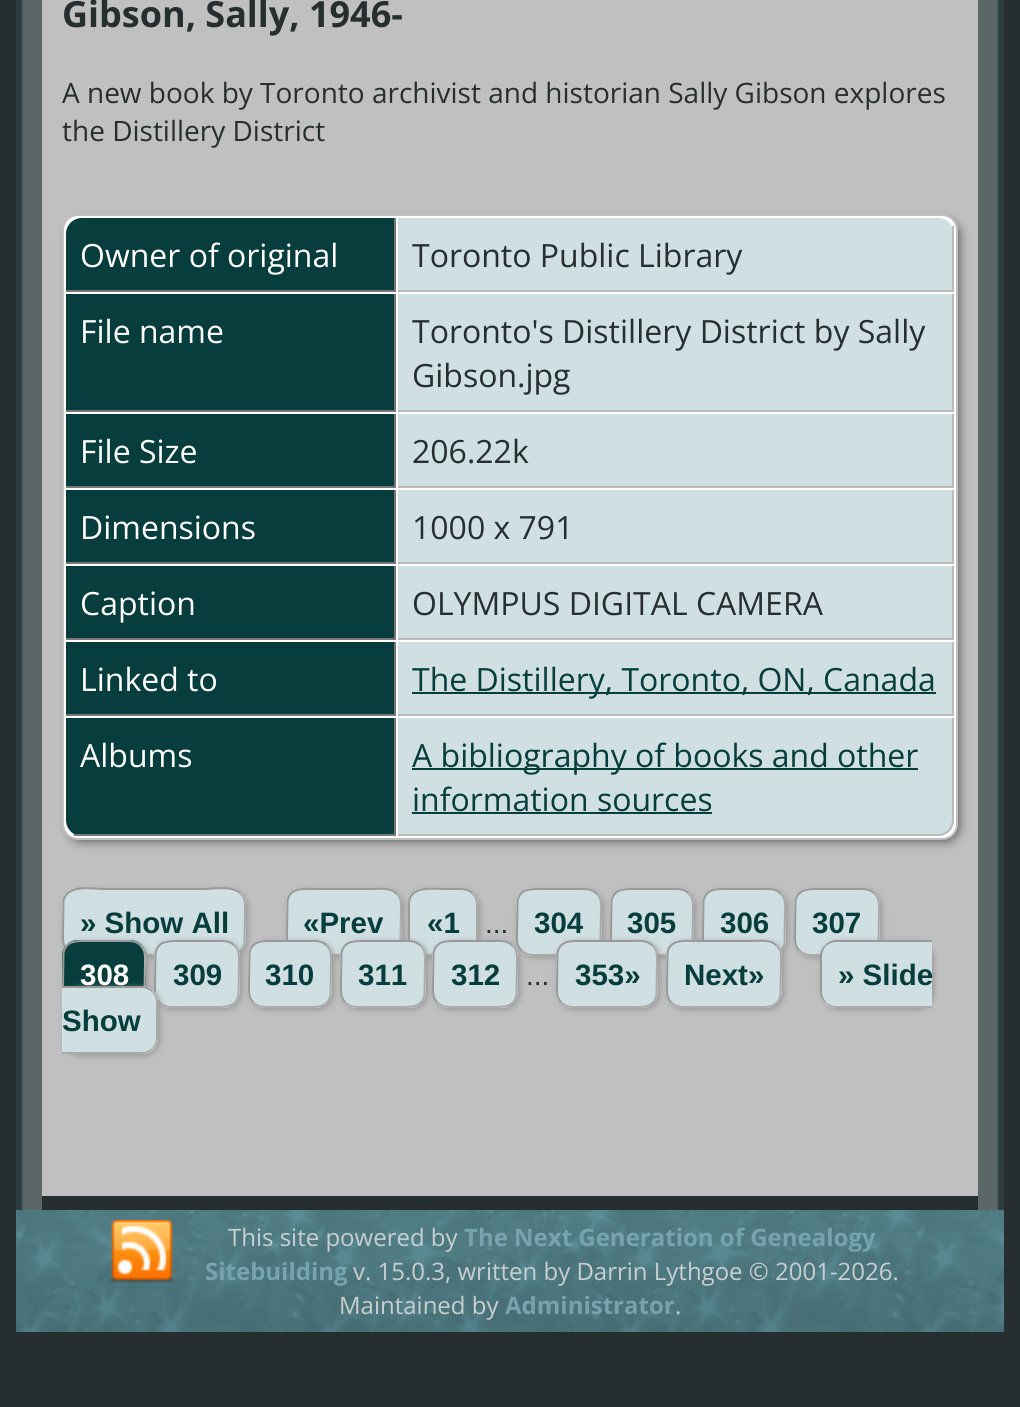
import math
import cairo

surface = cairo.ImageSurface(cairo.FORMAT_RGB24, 1020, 1407)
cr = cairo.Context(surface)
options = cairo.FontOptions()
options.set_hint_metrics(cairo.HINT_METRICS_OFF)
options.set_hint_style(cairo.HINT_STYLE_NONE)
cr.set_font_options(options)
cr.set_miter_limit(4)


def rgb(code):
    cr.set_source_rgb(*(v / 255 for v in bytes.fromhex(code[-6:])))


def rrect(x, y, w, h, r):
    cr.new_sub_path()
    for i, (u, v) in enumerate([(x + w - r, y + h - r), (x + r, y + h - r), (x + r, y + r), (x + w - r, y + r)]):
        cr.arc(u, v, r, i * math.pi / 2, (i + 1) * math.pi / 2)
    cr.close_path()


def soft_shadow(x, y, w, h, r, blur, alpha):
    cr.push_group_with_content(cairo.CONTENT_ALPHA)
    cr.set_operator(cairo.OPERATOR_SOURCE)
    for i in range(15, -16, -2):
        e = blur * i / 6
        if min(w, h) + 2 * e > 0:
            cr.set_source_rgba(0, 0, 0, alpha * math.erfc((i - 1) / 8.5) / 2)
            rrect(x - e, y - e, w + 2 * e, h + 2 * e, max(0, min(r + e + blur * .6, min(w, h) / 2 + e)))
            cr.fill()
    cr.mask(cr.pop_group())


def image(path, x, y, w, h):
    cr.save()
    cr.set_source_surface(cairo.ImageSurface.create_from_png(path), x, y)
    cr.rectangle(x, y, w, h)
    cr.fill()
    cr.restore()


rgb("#272e30")
cr.paint()
image("img/1.png", 16, 0, 26, 1176)
rgb("#c0c0c0")
cr.rectangle(42, 0, 936, 1196)
cr.fill()
rgb("#666666")
soft_shadow(68, 220, 892, 622, 14, 5, 1)
rgb("#ffffff")
rrect(63, 215, 894, 624, 15)
cr.fill_preserve()
rgb("#c0c0c0")
cr.stroke()
rgb("#073d3c")
cr.new_path()
cr.move_to(82, 218)
cr.line_to(396, 218)
cr.line_to(396, 292)
cr.line_to(66, 292)
cr.line_to(66, 234)
cr.curve_to(66, 225, 73, 218, 82, 218)
cr.close_path()
cr.fill()
rgb("#777777")
cr.rectangle(394, 218, 2, 74)
cr.fill()
cr.rectangle(66, 290, 330, 2)
cr.fill()
rgb("#cfdfe2")
cr.new_path()
cr.move_to(398, 218)
cr.line_to(938, 218)
cr.curve_to(947, 218, 954, 225, 954, 234)
cr.line_to(954, 292)
cr.line_to(398, 292)
cr.close_path()
cr.fill()
for x, y, w, h, color in [
    (952, 226, 2, 66, "#bbbbbb"),
    (398, 290, 556, 2, "#bbbbbb"),
    (66, 294, 328, 116, "#073d3c"),
    (394, 294, 2, 118, "#777777"),
    (66, 410, 330, 2, "#777777"),
    (398, 294, 554, 116, "#cfdfe2"),
    (952, 294, 2, 118, "#bbbbbb"),
    (398, 410, 556, 2, "#bbbbbb"),
    (66, 414, 328, 72, "#073d3c"),
    (394, 414, 2, 74, "#777777"),
    (66, 486, 330, 2, "#777777"),
    (398, 414, 554, 72, "#cfdfe2"),
    (952, 414, 2, 74, "#bbbbbb"),
    (398, 486, 556, 2, "#bbbbbb"),
    (66, 490, 328, 72, "#073d3c"),
    (394, 490, 2, 74, "#777777"),
    (66, 562, 330, 2, "#777777"),
    (398, 490, 554, 72, "#cfdfe2"),
    (952, 490, 2, 74, "#bbbbbb"),
    (398, 562, 556, 2, "#bbbbbb"),
    (66, 566, 328, 72, "#073d3c"),
    (394, 566, 2, 74, "#777777"),
    (66, 638, 330, 2, "#777777"),
    (398, 566, 554, 72, "#cfdfe2"),
    (952, 566, 2, 74, "#bbbbbb"),
    (398, 638, 556, 2, "#bbbbbb"),
    (66, 642, 328, 72, "#073d3c"),
    (394, 642, 2, 74, "#777777"),
    (66, 714, 330, 2, "#777777"),
    (398, 642, 554, 72, "#cfdfe2"),
    (952, 642, 2, 74, "#bbbbbb"),
    (398, 714, 556, 2, "#bbbbbb"),
    (412, 692, 524, 2, "#073d3c"),
]:
    rgb(color)
    cr.rectangle(x, y, w, h)
    cr.fill()
cr.new_path()
cr.move_to(66, 718)
cr.line_to(396, 718)
cr.line_to(396, 836)
cr.line_to(82, 836)
cr.curve_to(73, 836, 66, 829, 66, 820)
cr.close_path()
cr.fill()
rgb("#777777")
cr.rectangle(394, 718, 2, 118)
cr.fill()
cr.rectangle(74, 834, 322, 2)
cr.fill()
rgb("#cfdfe2")
cr.new_path()
cr.move_to(398, 718)
cr.line_to(954, 718)
cr.line_to(954, 820)
cr.curve_to(954, 829, 947, 836, 938, 836)
cr.line_to(398, 836)
cr.close_path()
cr.fill()
rgb("#bbbbbb")
cr.set_fill_rule(cairo.FILL_RULE_EVEN_ODD)
cr.new_path()
cr.move_to(398, 718)
cr.line_to(954, 718)
cr.line_to(954, 820)
cr.curve_to(954, 829, 947, 836, 938, 836)
cr.line_to(398, 836)
cr.close_path()
cr.move_to(398, 718)
cr.line_to(952, 718)
cr.line_to(952, 820)
cr.curve_to(952, 828, 946, 834, 938, 834)
cr.line_to(398, 834)
cr.close_path()
cr.fill()
rgb("#073d3c")
cr.rectangle(412, 768, 506, 2)
cr.fill()
cr.rectangle(412, 812, 300, 2)
cr.fill()
rgb("#999999")
soft_shadow(64, 890, 184, 68, 16, 3, 1)
rgb("#cfdfe2")
rrect(62, 888, 184, 68, 16)
cr.fill()
cr.new_path()
cr.move_to(240.5, 893.5)
cr.curve_to(245.5, 898, 245, 904, 245, 910)
cr.line_to(244.5, 943)
cr.curve_to(241, 960.5, 215.5, 955, 204.5, 955)
cr.line_to(103.5, 955)
cr.curve_to(96.5, 955, 75.5, 959, 67.5, 950.5)
rgb("#aaaaaa")
cr.stroke()
cr.new_path()
cr.move_to(67.5, 950.5)
cr.curve_to(62.5, 946, 63, 940, 63, 934)
cr.line_to(63.5, 901)
cr.curve_to(67, 883.5, 92.5, 889, 103.5, 889)
cr.line_to(204.5, 889)
cr.curve_to(211.5, 889, 232.5, 885, 240.5, 893.5)
rgb("#999999")
cr.stroke()
rgb("#999999")
soft_shadow(288, 890, 116, 68, 16, 3, 1)
rgb("#cfdfe2")
rrect(286, 888, 116, 68, 16)
cr.fill()
cr.new_path()
cr.move_to(396.5, 893.5)
cr.curve_to(401.5, 898, 401, 904, 401, 910)
cr.line_to(400.5, 943)
cr.curve_to(398, 957.5, 383, 955, 372, 955)
cr.line_to(316, 955)
cr.curve_to(308, 955, 298, 957, 291.5, 950.5)
rgb("#aaaaaa")
cr.stroke()
cr.new_path()
cr.move_to(291.5, 950.5)
cr.curve_to(286.5, 946, 287, 940, 287, 934)
cr.line_to(287.5, 901)
cr.curve_to(290, 886.5, 305, 889, 316, 889)
cr.line_to(372, 889)
cr.curve_to(380, 889, 390, 887, 396.5, 893.5)
rgb("#999999")
cr.stroke()
rgb("#999999")
soft_shadow(410, 890, 70, 68, 16, 3, 1)
rgb("#cfdfe2")
rrect(408, 888, 70, 68, 16)
cr.fill()
cr.new_path()
cr.move_to(472.5, 893.5)
cr.curve_to(477.5, 898, 477, 904, 477, 910)
cr.line_to(477, 941.5)
cr.curve_to(475, 958.5, 455, 955, 443, 955)
cr.line_to(430.5, 955)
cr.curve_to(424, 955, 418, 955.5, 413.5, 950.5)
rgb("#aaaaaa")
cr.stroke()
cr.new_path()
cr.move_to(413.5, 950.5)
cr.curve_to(408.5, 946, 409, 940, 409, 934)
cr.line_to(409, 902.5)
cr.curve_to(411, 885.5, 431, 889, 443, 889)
cr.line_to(455.5, 889)
cr.curve_to(462, 889, 468, 888.5, 472.5, 893.5)
rgb("#999999")
cr.stroke()
rgb("#999999")
soft_shadow(518, 890, 86, 68, 16, 3, 1)
rgb("#cfdfe2")
rrect(516, 888, 86, 68, 16)
cr.fill()
cr.new_path()
cr.move_to(596.5, 893.5)
cr.curve_to(601.5, 898, 601, 904, 601, 910)
cr.line_to(600.5, 943)
cr.curve_to(598, 955.5, 587, 955, 577, 955)
cr.line_to(541, 955)
cr.curve_to(534, 955, 527, 956, 521.5, 950.5)
rgb("#aaaaaa")
cr.stroke()
cr.new_path()
cr.move_to(521.5, 950.5)
cr.curve_to(516.5, 946, 517, 940, 517, 934)
cr.line_to(517.5, 901)
cr.curve_to(520, 888.5, 531, 889, 541, 889)
cr.line_to(577, 889)
cr.curve_to(584, 889, 591, 888, 596.5, 893.5)
rgb("#999999")
cr.stroke()
rgb("#999999")
soft_shadow(612, 890, 84, 68, 16, 3, 1)
rgb("#cfdfe2")
rrect(610, 888, 84, 68, 16)
cr.fill()
cr.new_path()
cr.move_to(688.5, 893.5)
cr.curve_to(693.5, 898, 693, 904, 693, 910)
cr.line_to(692.5, 943)
cr.curve_to(690, 955.5, 679.5, 955, 669.5, 955)
cr.line_to(634.5, 955)
cr.curve_to(627.5, 955, 620.5, 956, 615.5, 950.5)
rgb("#aaaaaa")
cr.stroke()
cr.new_path()
cr.move_to(615.5, 950.5)
cr.curve_to(610.5, 946, 611, 940, 611, 934)
cr.line_to(611.5, 901)
cr.curve_to(614, 888.5, 624.5, 889, 634.5, 889)
cr.line_to(669.5, 889)
cr.curve_to(676.5, 889, 683.5, 888, 688.5, 893.5)
rgb("#999999")
cr.stroke()
rgb("#999999")
soft_shadow(704, 890, 84, 68, 16, 3, 1)
rgb("#cfdfe2")
rrect(702, 888, 84, 68, 16)
cr.fill()
cr.new_path()
cr.move_to(780.5, 893.5)
cr.curve_to(785.5, 898, 785, 904, 785, 910)
cr.line_to(784.5, 943)
cr.curve_to(782, 955.5, 771.5, 955, 761.5, 955)
cr.line_to(726.5, 955)
cr.curve_to(719.5, 955, 712.5, 956, 707.5, 950.5)
rgb("#aaaaaa")
cr.stroke()
cr.new_path()
cr.move_to(707.5, 950.5)
cr.curve_to(702.5, 946, 703, 940, 703, 934)
cr.line_to(703.5, 901)
cr.curve_to(706, 888.5, 716.5, 889, 726.5, 889)
cr.line_to(761.5, 889)
cr.curve_to(768.5, 889, 775.5, 888, 780.5, 893.5)
rgb("#999999")
cr.stroke()
rgb("#999999")
soft_shadow(796, 890, 86, 68, 16, 3, 1)
rgb("#cfdfe2")
rrect(794, 888, 86, 68, 16)
cr.fill()
cr.new_path()
cr.move_to(874.5, 893.5)
cr.curve_to(879.5, 898, 879, 904, 879, 910)
cr.line_to(878.5, 943)
cr.curve_to(876, 955.5, 865, 955, 855, 955)
cr.line_to(819, 955)
cr.curve_to(812, 955, 805, 956, 799.5, 950.5)
rgb("#aaaaaa")
cr.stroke()
cr.new_path()
cr.move_to(799.5, 950.5)
cr.curve_to(794.5, 946, 795, 940, 795, 934)
cr.line_to(795.5, 901)
cr.curve_to(798, 888.5, 809, 889, 819, 889)
cr.line_to(855, 889)
cr.curve_to(862, 889, 869, 888, 874.5, 893.5)
rgb("#999999")
cr.stroke()
rgb("#999999")
soft_shadow(64, 942, 84, 68, 16, 3, 1)
rgb("#073d3c")
rrect(62, 940, 84, 68, 16)
cr.fill()
cr.new_path()
cr.move_to(140.5, 945.5)
cr.curve_to(145.5, 950, 145, 956, 145, 962)
cr.line_to(144.5, 995)
cr.curve_to(142, 1007.5, 131.5, 1007, 121.5, 1007)
cr.line_to(86.5, 1007)
cr.curve_to(79.5, 1007, 72.5, 1008, 67.5, 1002.5)
rgb("#aaaaaa")
cr.stroke()
cr.new_path()
cr.move_to(67.5, 1002.5)
cr.curve_to(62.5, 998, 63, 992, 63, 986)
cr.line_to(63.5, 953)
cr.curve_to(66, 940.5, 76.5, 941, 86.5, 941)
cr.line_to(121.5, 941)
cr.curve_to(128.5, 941, 135.5, 940, 140.5, 945.5)
rgb("#999999")
cr.stroke()
rgb("#999999")
soft_shadow(156, 942, 86, 68, 16, 3, 1)
rgb("#cfdfe2")
rrect(154, 940, 86, 68, 16)
cr.fill()
cr.new_path()
cr.move_to(234.5, 945.5)
cr.curve_to(239.5, 950, 239, 956, 239, 962)
cr.line_to(238.5, 995)
cr.curve_to(236, 1007.5, 225, 1007, 215, 1007)
cr.line_to(179, 1007)
cr.curve_to(172, 1007, 165, 1008, 159.5, 1002.5)
rgb("#aaaaaa")
cr.stroke()
cr.new_path()
cr.move_to(159.5, 1002.5)
cr.curve_to(154.5, 998, 155, 992, 155, 986)
cr.line_to(155.5, 953)
cr.curve_to(158, 940.5, 169, 941, 179, 941)
cr.line_to(215, 941)
cr.curve_to(222, 941, 229, 940, 234.5, 945.5)
rgb("#999999")
cr.stroke()
rgb("#999999")
soft_shadow(250, 942, 84, 68, 16, 3, 1)
rgb("#cfdfe2")
rrect(248, 940, 84, 68, 16)
cr.fill()
cr.new_path()
cr.move_to(326.5, 945.5)
cr.curve_to(331.5, 950, 331, 956, 331, 962)
cr.line_to(330.5, 995)
cr.curve_to(328, 1007.5, 317.5, 1007, 307.5, 1007)
cr.line_to(272.5, 1007)
cr.curve_to(265.5, 1007, 258.5, 1008, 253.5, 1002.5)
rgb("#aaaaaa")
cr.stroke()
cr.new_path()
cr.move_to(253.5, 1002.5)
cr.curve_to(248.5, 998, 249, 992, 249, 986)
cr.line_to(249.5, 953)
cr.curve_to(252, 940.5, 262.5, 941, 272.5, 941)
cr.line_to(307.5, 941)
cr.curve_to(314.5, 941, 321.5, 940, 326.5, 945.5)
rgb("#999999")
cr.stroke()
rgb("#999999")
soft_shadow(342, 942, 86, 68, 16, 3, 1)
rgb("#cfdfe2")
rrect(340, 940, 86, 68, 16)
cr.fill()
cr.new_path()
cr.move_to(420.5, 945.5)
cr.curve_to(425.5, 950, 425, 956, 425, 962)
cr.line_to(424.5, 995)
cr.curve_to(422, 1007.5, 411, 1007, 401, 1007)
cr.line_to(365, 1007)
cr.curve_to(358, 1007, 351, 1008, 345.5, 1002.5)
rgb("#aaaaaa")
cr.stroke()
cr.new_path()
cr.move_to(345.5, 1002.5)
cr.curve_to(340.5, 998, 341, 992, 341, 986)
cr.line_to(341.5, 953)
cr.curve_to(344, 940.5, 355, 941, 365, 941)
cr.line_to(401, 941)
cr.curve_to(408, 941, 415, 940, 420.5, 945.5)
rgb("#999999")
cr.stroke()
rgb("#999999")
soft_shadow(434, 942, 86, 68, 16, 3, 1)
rgb("#cfdfe2")
rrect(432, 940, 86, 68, 16)
cr.fill()
cr.new_path()
cr.move_to(512.5, 945.5)
cr.curve_to(517.5, 950, 517, 956, 517, 962)
cr.line_to(516.5, 995)
cr.curve_to(514, 1007.5, 503, 1007, 493, 1007)
cr.line_to(457, 1007)
cr.curve_to(450, 1007, 443, 1008, 437.5, 1002.5)
rgb("#aaaaaa")
cr.stroke()
cr.new_path()
cr.move_to(437.5, 1002.5)
cr.curve_to(432.5, 998, 433, 992, 433, 986)
cr.line_to(433.5, 953)
cr.curve_to(436, 940.5, 447, 941, 457, 941)
cr.line_to(493, 941)
cr.curve_to(500, 941, 507, 940, 512.5, 945.5)
rgb("#999999")
cr.stroke()
rgb("#999999")
soft_shadow(558, 942, 102, 68, 16, 3, 1)
rgb("#cfdfe2")
rrect(556, 940, 102, 68, 16)
cr.fill()
cr.new_path()
cr.move_to(652.5, 945.5)
cr.curve_to(657.5, 950, 657, 956, 657, 962)
cr.line_to(656.5, 995)
cr.curve_to(654, 1008.5, 641, 1007, 630.5, 1007)
cr.line_to(583.5, 1007)
cr.curve_to(576, 1007, 567.5, 1008.5, 561.5, 1002.5)
rgb("#aaaaaa")
cr.stroke()
cr.new_path()
cr.move_to(561.5, 1002.5)
cr.curve_to(556.5, 998, 557, 992, 557, 986)
cr.line_to(557.5, 953)
cr.curve_to(560, 939.5, 573, 941, 583.5, 941)
cr.line_to(630.5, 941)
cr.curve_to(638, 941, 646.5, 939.5, 652.5, 945.5)
rgb("#999999")
cr.stroke()
rgb("#999999")
soft_shadow(668, 942, 116, 68, 16, 3, 1)
rgb("#cfdfe2")
rrect(666, 940, 116, 68, 16)
cr.fill()
cr.new_path()
cr.move_to(776.5, 945.5)
cr.curve_to(781.5, 950, 781, 956, 781, 962)
cr.line_to(780.5, 995)
cr.curve_to(778, 1009.5, 763, 1007, 752, 1007)
cr.line_to(696, 1007)
cr.curve_to(688, 1007, 678, 1009, 671.5, 1002.5)
rgb("#aaaaaa")
cr.stroke()
cr.new_path()
cr.move_to(671.5, 1002.5)
cr.curve_to(666.5, 998, 667, 992, 667, 986)
cr.line_to(667.5, 953)
cr.curve_to(670, 938.5, 685, 941, 696, 941)
cr.line_to(752, 941)
cr.curve_to(760, 941, 770, 939, 776.5, 945.5)
rgb("#999999")
cr.stroke()
rgb("#999999")
soft_shadow(822, 942, 112, 68, 16, 3, 1)
rgb("#cfdfe2")
cr.new_path()
cr.move_to(836, 940)
cr.line_to(932, 940)
cr.line_to(932, 1008)
cr.line_to(836, 1008)
cr.curve_to(827, 1008, 820, 1001, 820, 992)
cr.line_to(820, 956)
cr.curve_to(820, 947, 827, 940, 836, 940)
cr.close_path()
cr.fill()
rgb("#999999")
cr.set_fill_rule(cairo.FILL_RULE_WINDING)
cr.new_path()
cr.move_to(836, 940)
cr.curve_to(832, 940, 828, 942, 825, 945)
cr.line_to(826, 946)
cr.curve_to(828, 944, 832, 942, 836, 942)
cr.line_to(932, 942)
cr.line_to(932, 940)
cr.close_path()
cr.fill()
rgb("#aaaaaa")
cr.new_path()
cr.move_to(932, 1008)
cr.line_to(932, 1006)
cr.line_to(836, 1006)
cr.curve_to(832, 1006, 828, 1004, 826, 1002)
cr.line_to(825, 1003)
cr.curve_to(828, 1006, 832, 1008, 836, 1008)
cr.close_path()
cr.fill()
rgb("#999999")
cr.new_path()
cr.move_to(820, 956)
cr.line_to(820, 992)
cr.curve_to(820, 996, 822, 1000, 825, 1003)
cr.line_to(826, 1002)
cr.curve_to(824, 1000, 822, 996, 822, 992)
cr.line_to(822, 956)
cr.curve_to(822, 952, 824, 948, 826, 946)
cr.line_to(825, 945)
cr.curve_to(822, 948, 820, 952, 820, 956)
cr.close_path()
cr.fill()
rgb("#999999")
soft_shadow(64, 988, 96, 68, 16, 3, 1)
rgb("#cfdfe2")
cr.new_path()
cr.move_to(62, 986)
cr.line_to(142, 986)
cr.curve_to(151, 986, 158, 993, 158, 1002)
cr.line_to(158, 1038)
cr.curve_to(158, 1047, 151, 1054, 142, 1054)
cr.line_to(62, 1054)
cr.close_path()
cr.fill()
rgb("#999999")
cr.new_path()
cr.move_to(62, 986)
cr.line_to(62, 988)
cr.line_to(142, 988)
cr.curve_to(146, 988, 150, 990, 152, 992)
cr.line_to(153, 991)
cr.curve_to(150, 988, 146, 986, 142, 986)
cr.close_path()
cr.fill()
rgb("#aaaaaa")
cr.new_path()
cr.move_to(152, 1048)
cr.curve_to(154, 1046, 156, 1042, 156, 1038)
cr.line_to(156, 1002)
cr.curve_to(156, 998, 154, 994, 152, 992)
cr.line_to(153, 991)
cr.curve_to(156, 994, 158, 998, 158, 1002)
cr.line_to(158, 1038)
cr.curve_to(158, 1042, 156, 1046, 153, 1049)
cr.close_path()
cr.fill()
cr.new_path()
cr.move_to(62, 1052)
cr.line_to(62, 1054)
cr.line_to(142, 1054)
cr.curve_to(146, 1054, 150, 1052, 153, 1049)
cr.line_to(152, 1048)
cr.curve_to(150, 1050, 146, 1052, 142, 1052)
cr.close_path()
cr.fill()
image("img/2.png", 978, 0, 26, 1176)
image("img/3.png", 16, 1176, 26, 34)
image("img/4.png", 978, 1176, 26, 34)
image("img/5.png", 16, 1210, 988, 22)
image("img/7.png", 16, 1232, 988, 100)
image("img/6.png", 110, 1220, 64, 63)
cr.select_font_face("Open Sans", cairo.FONT_SLANT_NORMAL, cairo.FONT_WEIGHT_BOLD)
cr.set_font_size(36)
rgb("#272e30")
cr.move_to(62, 27)
cr.show_text("Gibson, Sally, 1946-")
cr.select_font_face("Open Sans")
cr.set_font_size(28)
cr.move_to(62, 103)
cr.show_text("A new book by Toronto archivist and historian Sally Gibson explores")
cr.move_to(62, 141)
cr.show_text("the Distillery District")
cr.set_font_size(32)
rgb("#ffffff")
cr.move_to(80, 267)
cr.show_text("Owner of original")
rgb("#272e30")
cr.move_to(412, 267)
cr.show_text("Toronto Public Library")
rgb("#ffffff")
cr.move_to(80, 343)
cr.show_text("File name")
rgb("#272e30")
cr.move_to(412, 343)
cr.show_text("Toronto's Distillery District by Sally")
cr.move_to(412, 387)
cr.show_text("Gibson.jpg")
rgb("#ffffff")
cr.move_to(80, 463)
cr.show_text("File Size")
rgb("#272e30")
cr.move_to(412, 463)
cr.show_text("206.22k")
rgb("#ffffff")
cr.move_to(80, 539)
cr.show_text("Dimensions")
rgb("#272e30")
cr.move_to(412, 539)
cr.show_text("1000 x 791")
rgb("#ffffff")
cr.move_to(80, 615)
cr.show_text("Caption")
rgb("#272e30")
cr.move_to(412, 615)
cr.show_text("OLYMPUS DIGITAL CAMERA")
rgb("#ffffff")
cr.move_to(80, 691)
cr.show_text("Linked to")
rgb("#073d3c")
cr.move_to(412, 691)
cr.show_text("The Distillery, Toronto, ON, Canada")
rgb("#ffffff")
cr.move_to(80, 767)
cr.show_text("Albums")
rgb("#073d3c")
cr.move_to(412, 767)
cr.show_text("A bibliography of books and other")
cr.move_to(412, 811)
cr.show_text("information sources")
cr.select_font_face("Liberation Sans", cairo.FONT_SLANT_NORMAL, cairo.FONT_WEIGHT_BOLD)
cr.set_font_size(29.5)
for x, y, s in [
    (80, 933, "» Show All"),
    (303, 933, "«Prev"),
    (427, 933, "«1"),
]:
    cr.move_to(x, y)
    cr.show_text(s)
cr.select_font_face("Liberation Sans")
cr.set_font_size(28)
rgb("#272e30")
cr.move_to(485, 933)
cr.show_text("...")
cr.select_font_face("Liberation Sans", cairo.FONT_SLANT_NORMAL, cairo.FONT_WEIGHT_BOLD)
cr.set_font_size(29.5)
rgb("#073d3c")
for x, y, s in [
    (534, 933, "304"),
    (627, 933, "305"),
    (720, 933, "306"),
    (812, 933, "307"),
]:
    cr.move_to(x, y)
    cr.show_text(s)
rgb("#ffffff")
cr.move_to(80, 985)
cr.show_text("308")
rgb("#073d3c")
for x, y, s in [
    (173, 985, "309"),
    (265, 985, "310"),
    (358, 985, "311"),
    (451, 985, "312"),
]:
    cr.move_to(x, y)
    cr.show_text(s)
cr.select_font_face("Liberation Sans")
cr.set_font_size(28)
rgb("#272e30")
cr.move_to(526, 985)
cr.show_text("...")
cr.select_font_face("Liberation Sans", cairo.FONT_SLANT_NORMAL, cairo.FONT_WEIGHT_BOLD)
cr.set_font_size(29.5)
rgb("#073d3c")
for x, y, s in [
    (575, 985, "353»"),
    (684, 985, "Next»"),
    (838, 985, "» Slide"),
    (62, 1031, "Show"),
]:
    cr.move_to(x, y)
    cr.show_text(s)
cr.select_font_face("Open Sans")
cr.set_font_size(24)
rgb("#c7cfd1")
cr.move_to(228, 1246)
cr.show_text("This site powered by")
cr.select_font_face("Open Sans", cairo.FONT_SLANT_NORMAL, cairo.FONT_WEIGHT_BOLD)
rgb("#76a3ad")
cr.move_to(464, 1246)
cr.show_text("The Next Generation of Genealogy")
cr.move_to(205, 1280)
cr.show_text("Sitebuilding")
cr.select_font_face("Open Sans")
rgb("#c7cfd1")
cr.move_to(353, 1280)
cr.show_text("v. 15.0.3, written by Darrin Lythgoe © 2001-2026.")
cr.move_to(339, 1314)
cr.show_text("Maintained by")
cr.select_font_face("Open Sans", cairo.FONT_SLANT_NORMAL, cairo.FONT_WEIGHT_BOLD)
rgb("#76a3ad")
cr.move_to(505, 1314)
cr.show_text("Administrator")
cr.select_font_face("Open Sans")
rgb("#c7cfd1")
cr.move_to(675, 1314)
cr.show_text(".")
surface.write_to_png("page.png")
